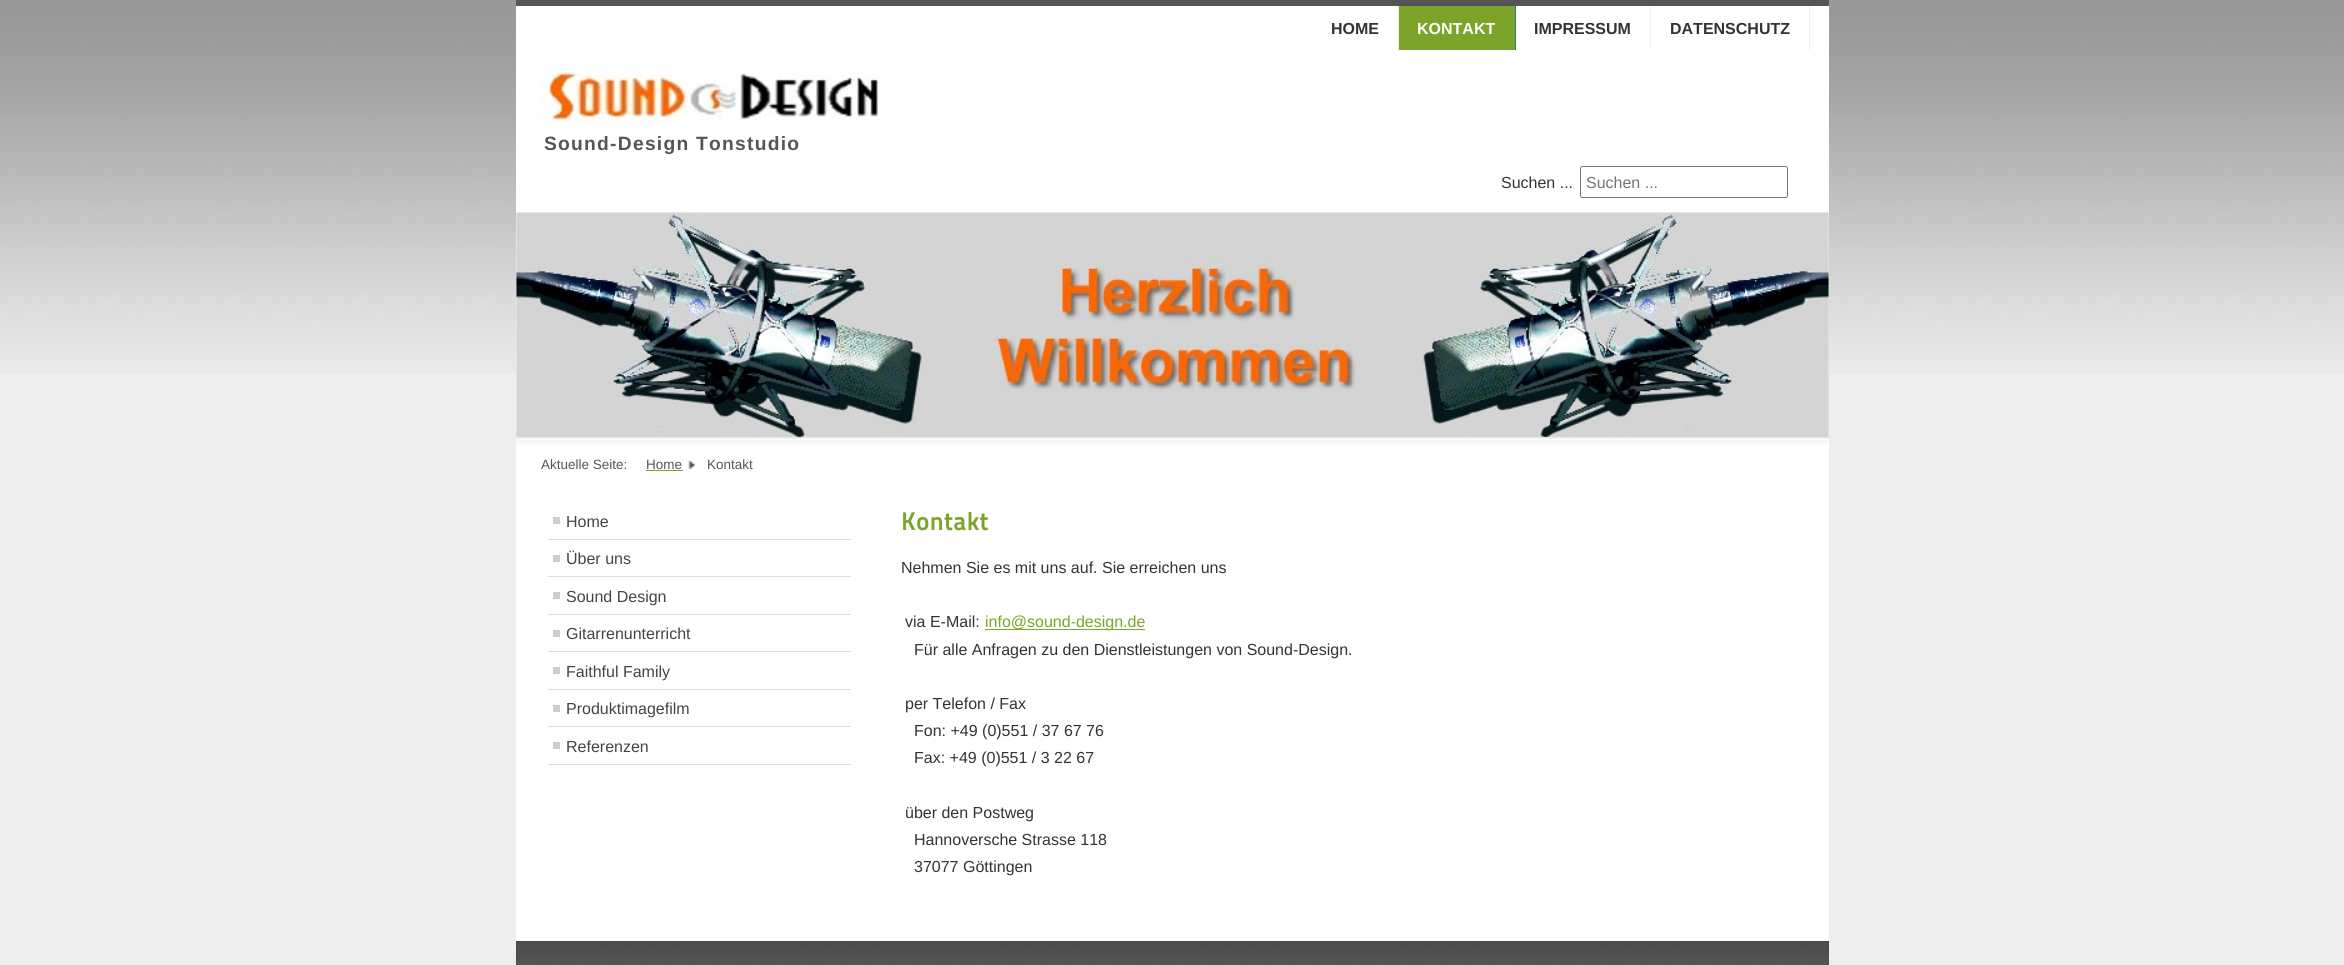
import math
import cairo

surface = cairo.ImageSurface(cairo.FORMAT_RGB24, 2344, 965)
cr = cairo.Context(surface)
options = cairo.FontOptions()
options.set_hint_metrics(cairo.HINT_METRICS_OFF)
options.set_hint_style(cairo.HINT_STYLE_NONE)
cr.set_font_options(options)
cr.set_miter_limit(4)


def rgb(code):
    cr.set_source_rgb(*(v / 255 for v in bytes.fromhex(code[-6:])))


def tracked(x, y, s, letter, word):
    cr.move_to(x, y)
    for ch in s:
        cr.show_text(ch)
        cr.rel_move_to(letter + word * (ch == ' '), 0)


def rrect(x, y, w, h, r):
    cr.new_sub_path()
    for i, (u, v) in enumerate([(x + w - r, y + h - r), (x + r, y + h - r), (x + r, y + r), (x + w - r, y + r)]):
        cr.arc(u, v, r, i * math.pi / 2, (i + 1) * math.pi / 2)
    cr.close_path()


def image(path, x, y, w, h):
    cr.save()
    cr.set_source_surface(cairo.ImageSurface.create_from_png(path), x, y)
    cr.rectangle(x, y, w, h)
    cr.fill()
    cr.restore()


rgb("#eeeeee")
cr.paint()
image("img/1.png", 0, 0, 2344, 374)
for x, y, w, h, color in [
    (516, 6, 1313, 207, "#ffffff"),
    (1398, 6, 1, 44, "#eeeeee"),
    (1399, 6, 116, 44, "#7ba428"),
    (1515, 6, 1, 44, "#237d85"),
    (1650, 6, 1, 44, "#eeeeee"),
    (1809, 6, 1, 44, "#eeeeee"),
    (516, 0, 1313, 6, "#555555"),
]:
    rgb(color)
    cr.rectangle(x, y, w, h)
    cr.fill()
image("img/2.png", 541, 64, 340, 60)
rrect(1580.5, 166.5, 207, 31, 2)
rgb("#767676")
cr.set_line_width(1)
cr.stroke()
rgb("#eeeeee")
cr.rectangle(516, 213, 1313, 161)
cr.fill()
image("img/3.png", 516, 212, 1313, 226)
rgb("#ffffff")
cr.rectangle(516, 438, 1313, 503)
cr.fill()
image("img/4.png", 516, 437, 1313, 8)
rgb("#7ba428")
cr.rectangle(646, 470, 37, 1)
cr.fill()
image("img/5.png", 688, 460, 8, 9)
for x, y, w, h, color in [
    (548, 539, 303, 1, "#dddddd"),
    (553, 517, 7, 7, "#cccccc"),
    (548, 576, 303, 1, "#dddddd"),
    (553, 555, 7, 7, "#cccccc"),
    (548, 614, 303, 1, "#dddddd"),
    (553, 592, 7, 7, "#cccccc"),
    (548, 651, 303, 1, "#dddddd"),
    (553, 630, 7, 7, "#cccccc"),
    (548, 689, 303, 1, "#dddddd"),
    (553, 667, 7, 7, "#cccccc"),
    (548, 726, 303, 1, "#dddddd"),
    (553, 705, 7, 7, "#cccccc"),
    (548, 764, 303, 1, "#dddddd"),
    (553, 742, 7, 7, "#cccccc"),
    (985, 629, 160, 1, "#7ba428"),
    (516, 941, 1313, 24, "#333333"),
]:
    rgb(color)
    cr.rectangle(x, y, w, h)
    cr.fill()
image("img/6.png", 516, 941, 1313, 24)
cr.select_font_face("Liberation Sans", cairo.FONT_SLANT_NORMAL, cairo.FONT_WEIGHT_BOLD)
cr.set_font_size(16)
cr.move_to(1331, 34)
cr.show_text("HOME")
rgb("#ffffff")
cr.move_to(1417, 34)
cr.show_text("KONTAKT")
rgb("#333333")
cr.move_to(1534, 34)
cr.show_text("IMPRESSUM")
cr.move_to(1670, 34)
cr.show_text("DATENSCHUTZ")
cr.set_font_size(19.25)
rgb("#555555")
tracked(544, 150, "Sound-Design Tonstudio", 1.25, 0)
cr.select_font_face("Liberation Sans")
cr.set_font_size(16)
rgb("#333333")
cr.move_to(1501, 188)
cr.show_text("Suchen ...")
rgb("#757575")
cr.move_to(1586, 188)
cr.show_text("Suchen ...")
cr.set_font_size(13.5)
rgb("#555555")
for x, y, s in [
    (541, 469, "Aktuelle Seite:"),
    (646, 469, "Home"),
    (707, 469, "Kontakt"),
]:
    cr.move_to(x, y)
    cr.show_text(s)
cr.set_font_size(16)
rgb("#444444")
for x, y, s in [
    (566, 527, "Home"),
    (566, 564, "Über uns"),
    (566, 602, "Sound Design"),
    (566, 639, "Gitarrenunterricht"),
    (566, 677, "Faithful Family"),
    (566, 714, "Produktimagefilm"),
    (566, 752, "Referenzen"),
]:
    cr.move_to(x, y)
    cr.show_text(s)
cr.select_font_face("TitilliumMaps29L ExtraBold")
cr.set_font_size(25.5)
rgb("#7ba428")
cr.move_to(901, 530)
cr.show_text("Kontakt")
cr.select_font_face("Liberation Sans")
cr.set_font_size(16)
rgb("#333333")
cr.move_to(901, 573)
cr.show_text("Nehmen Sie es mit uns auf. Sie erreichen uns")
cr.move_to(905, 627)
cr.show_text("via E-Mail:")
rgb("#7ba428")
cr.move_to(985, 627)
cr.show_text("info@sound-design.de")
rgb("#333333")
for x, y, s in [
    (914, 655, "Für alle Anfragen zu den Dienstleistungen von Sound-Design."),
    (905, 709, "per Telefon / Fax"),
    (914, 736, "Fon: +49 (0)551 / 37 67 76"),
    (914, 763, "Fax: +49 (0)551 / 3 22 67"),
    (905, 818, "über den Postweg"),
    (914, 845, "Hannoversche Strasse 118"),
    (914, 872, "37077 Göttingen"),
]:
    cr.move_to(x, y)
    cr.show_text(s)
surface.write_to_png("page.png")
